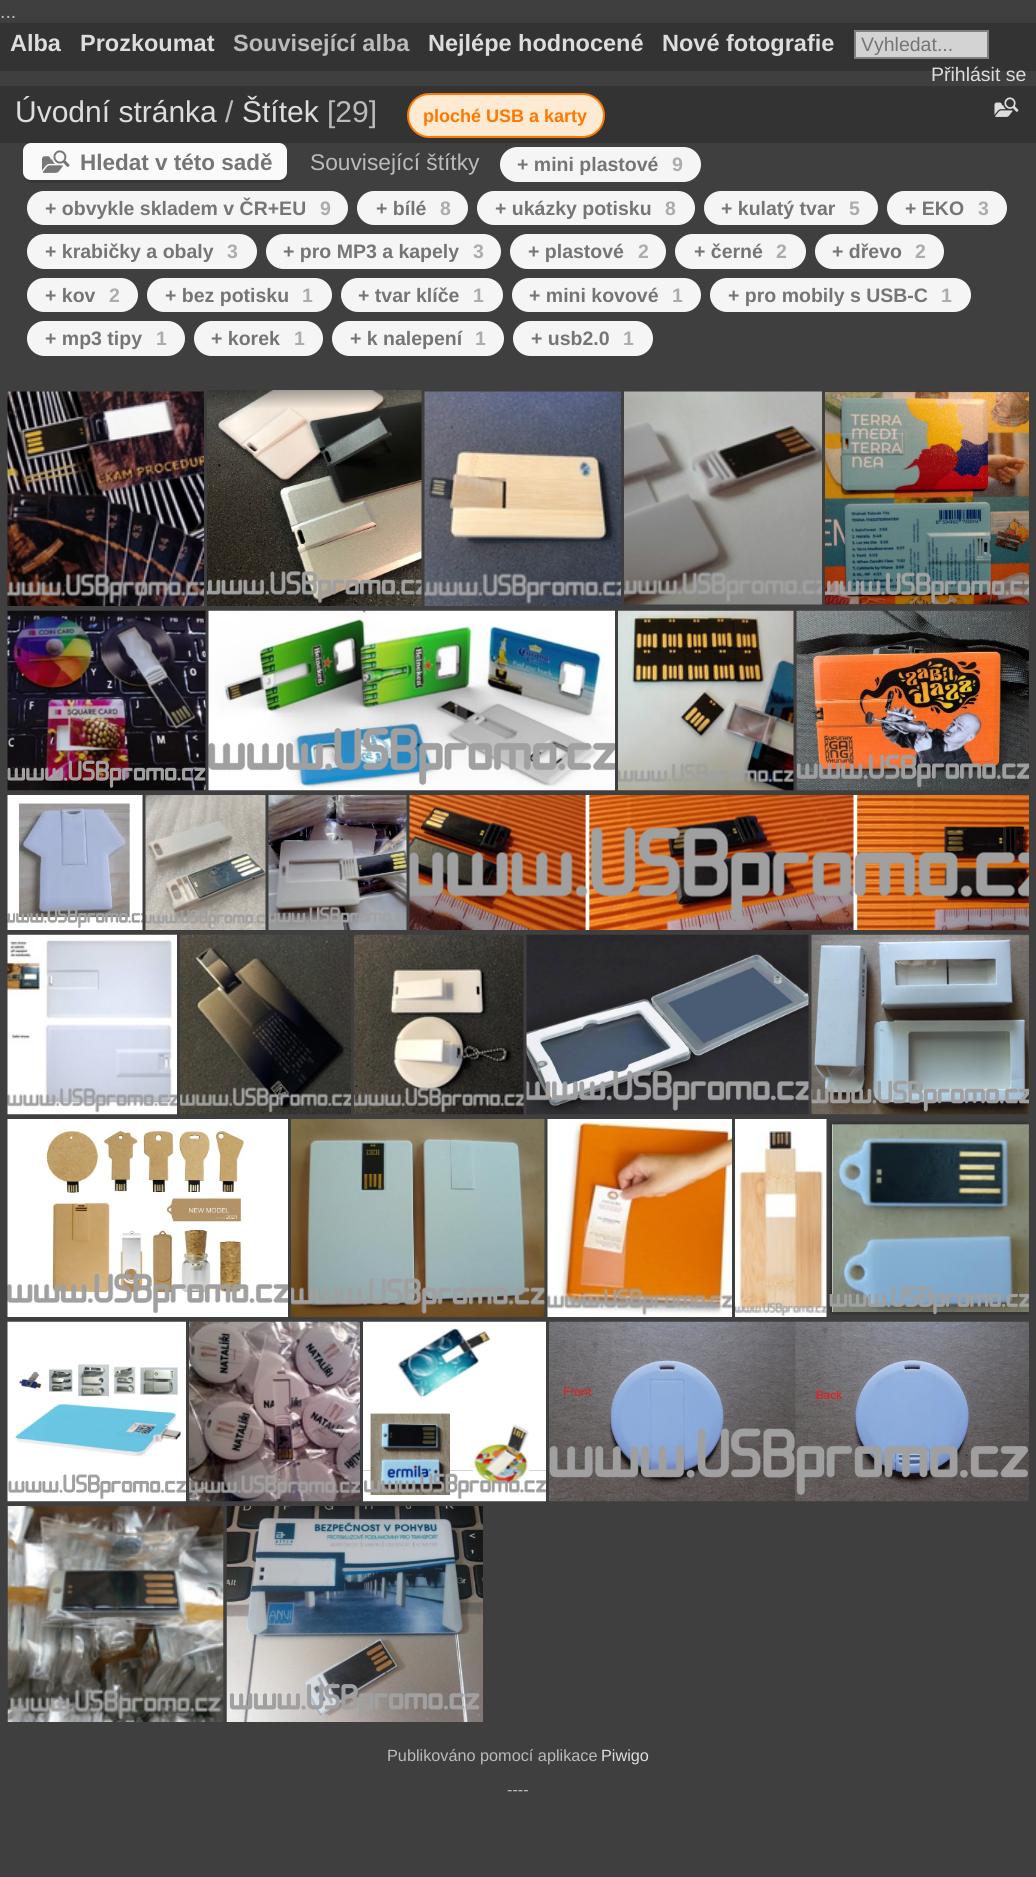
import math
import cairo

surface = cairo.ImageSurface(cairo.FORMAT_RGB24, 1036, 1877)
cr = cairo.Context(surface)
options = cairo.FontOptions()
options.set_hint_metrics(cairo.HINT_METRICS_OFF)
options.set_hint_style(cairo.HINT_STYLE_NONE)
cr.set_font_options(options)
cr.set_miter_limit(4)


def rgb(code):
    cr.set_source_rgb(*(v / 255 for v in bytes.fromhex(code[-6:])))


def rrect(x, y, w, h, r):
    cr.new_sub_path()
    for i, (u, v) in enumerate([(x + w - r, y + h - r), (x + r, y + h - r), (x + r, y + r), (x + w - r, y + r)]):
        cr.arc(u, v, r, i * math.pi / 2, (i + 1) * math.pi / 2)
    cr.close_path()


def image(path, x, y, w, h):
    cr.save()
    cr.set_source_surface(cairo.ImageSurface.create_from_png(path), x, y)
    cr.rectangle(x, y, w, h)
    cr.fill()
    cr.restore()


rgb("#3f3f3f")
cr.paint()
rgb("#333333")
cr.rectangle(0, 23, 1036, 48)
cr.fill()
rgb("#d3d3d3")
cr.rectangle(855, 31, 133, 27)
cr.fill_preserve()
rgb("#808080")
cr.stroke()
rgb("#333333")
cr.rectangle(0, 86, 1036, 57)
cr.fill()
rgb("#fcead2")
rrect(408, 94, 196, 43, 21.5)
cr.fill_preserve()
rgb("#ff7700")
cr.stroke()
image("img/1.png", 994, 97, 25, 20)
rgb("#363636")
cr.new_path()
cr.move_to(23, 175)
cr.curve_to(23, 180, 27, 183, 31, 183)
cr.line_to(279, 183)
cr.curve_to(283, 183, 287, 179, 287, 175)
cr.line_to(287, 154)
cr.line_to(286, 151)
cr.line_to(286, 172)
cr.curve_to(286, 177, 283, 180, 279, 180)
cr.line_to(30, 180)
cr.curve_to(27, 180, 24, 178, 23, 175)
cr.close_path()
cr.fill()
rgb("#fafafa")
rrect(23, 143, 264, 37, 8)
cr.fill()
image("img/2.png", 42, 150, 28, 23)
rgb("#f5f5f5")
rrect(500, 147, 201, 35, 17.5)
cr.fill()
rrect(27, 191, 321, 34, 17)
cr.fill()
rrect(357, 191, 111, 34, 17)
cr.fill()
rrect(477, 191, 218, 34, 17)
cr.fill()
rrect(704, 191, 174, 34, 17)
cr.fill()
rrect(887, 191, 120, 34, 17)
cr.fill()
rrect(27, 234, 230, 35, 17.5)
cr.fill()
rrect(266, 234, 235, 35, 17.5)
cr.fill()
rrect(510, 234, 156, 35, 17.5)
cr.fill()
rrect(675, 234, 131, 35, 17.5)
cr.fill()
rrect(815, 234, 129, 35, 17.5)
cr.fill()
rrect(27, 278, 111, 34, 17)
cr.fill()
rrect(147, 278, 185, 34, 17)
cr.fill()
rrect(341, 278, 162, 34, 17)
cr.fill()
rrect(512, 278, 189, 34, 17)
cr.fill()
rrect(710, 278, 261, 34, 17)
cr.fill()
rrect(27, 321, 158, 35, 17.5)
cr.fill()
rrect(194, 321, 129, 35, 17.5)
cr.fill()
rrect(332, 321, 172, 35, 17.5)
cr.fill()
rrect(513, 321, 140, 35, 17.5)
cr.fill()
image("img/3.png", 7, 391, 197, 215)
image("img/4.png", 207, 390, 215, 216)
image("img/5.png", 424, 391, 197, 215)
image("img/6.png", 624, 391, 198, 214)
image("img/7.png", 825, 391, 204, 214)
image("img/8.png", 7, 610, 199, 181)
image("img/9.png", 208, 610, 407, 181)
image("img/10.png", 618, 610, 176, 181)
image("img/11.png", 796, 610, 233, 181)
image("img/12.png", 7, 795, 136, 135)
image("img/13.png", 145, 795, 121, 135)
image("img/14.png", 268, 795, 139, 135)
image("img/15.png", 409, 795, 620, 135)
image("img/16.png", 7, 934, 170, 181)
image("img/17.png", 180, 934, 171, 181)
image("img/18.png", 354, 934, 170, 181)
image("img/19.png", 526, 934, 283, 181)
image("img/20.png", 811, 934, 218, 181)
image("img/21.png", 7, 1119, 281, 198)
image("img/22.png", 291, 1119, 254, 198)
image("img/23.png", 547, 1119, 185, 198)
image("img/24.png", 735, 1119, 92, 198)
image("img/25.png", 829, 1121, 200, 194)
image("img/26.png", 7, 1321, 179, 181)
image("img/27.png", 189, 1321, 171, 181)
image("img/28.png", 363, 1321, 183, 181)
image("img/29.png", 549, 1321, 480, 181)
image("img/30.png", 7, 1506, 217, 216)
image("img/31.png", 226, 1506, 257, 216)
cr.select_font_face("Liberation Sans")
cr.set_font_size(19.5)
rgb("#bbbbbb")
cr.move_to(0, 18)
cr.show_text("...")
cr.select_font_face("Liberation Sans", cairo.FONT_SLANT_NORMAL, cairo.FONT_WEIGHT_BOLD)
cr.set_font_size(23.5)
rgb("#dddddd")
cr.move_to(10, 51)
cr.show_text("Alba")
cr.move_to(80, 51)
cr.show_text("Prozkoumat")
rgb("#bbbbbb")
cr.move_to(233, 51)
cr.show_text("Související alba")
rgb("#dddddd")
cr.move_to(428, 51)
cr.show_text("Nejlépe hodnocené")
cr.move_to(662, 51)
cr.show_text("Nové fotografie")
cr.select_font_face("Liberation Sans")
cr.set_font_size(19.5)
rgb("#757575")
cr.move_to(861, 51)
cr.show_text("Vyhledat...")
rgb("#dddddd")
cr.move_to(931, 81)
cr.show_text("Přihlásit se")
cr.set_font_size(30)
cr.move_to(15, 122)
cr.show_text("Úvodní stránka")
rgb("#bbbbbb")
cr.move_to(225, 122)
cr.show_text("/")
rgb("#dddddd")
cr.move_to(242, 122)
cr.show_text("Štítek")
rgb("#bbbbbb")
cr.move_to(327, 122)
cr.show_text("[29]")
cr.select_font_face("Liberation Sans", cairo.FONT_SLANT_NORMAL, cairo.FONT_WEIGHT_BOLD)
cr.set_font_size(18)
rgb("#ff7700")
cr.move_to(423, 122)
cr.show_text("ploché USB a karty")
cr.set_font_size(22.5)
rgb("#757575")
cr.move_to(80, 170)
cr.show_text("Hledat v této sadě")
cr.select_font_face("Liberation Sans")
cr.set_font_size(22.75)
rgb("#bbbbbb")
cr.move_to(310, 170)
cr.show_text("Související štítky")
cr.select_font_face("Liberation Sans", cairo.FONT_SLANT_NORMAL, cairo.FONT_WEIGHT_BOLD)
cr.set_font_size(19.5)
rgb("#757575")
cr.move_to(517, 171)
cr.show_text("+ mini plastové")
rgb("#acacac")
cr.move_to(672, 171)
cr.show_text("9")
rgb("#757575")
cr.move_to(45, 215)
cr.show_text("+ obvykle skladem v ČR+EU")
rgb("#acacac")
cr.move_to(320, 215)
cr.show_text("9")
rgb("#757575")
cr.move_to(376, 215)
cr.show_text("+ bílé")
rgb("#acacac")
cr.move_to(440, 215)
cr.show_text("8")
rgb("#757575")
cr.move_to(495, 215)
cr.show_text("+ ukázky potisku")
rgb("#acacac")
cr.move_to(665, 215)
cr.show_text("8")
rgb("#757575")
cr.move_to(721, 215)
cr.show_text("+ kulatý tvar")
rgb("#acacac")
cr.move_to(849, 215)
cr.show_text("5")
rgb("#757575")
cr.move_to(905, 215)
cr.show_text("+ EKO")
rgb("#acacac")
cr.move_to(978, 215)
cr.show_text("3")
rgb("#757575")
cr.move_to(45, 258)
cr.show_text("+ krabičky a obaly")
rgb("#acacac")
cr.move_to(227, 258)
cr.show_text("3")
rgb("#757575")
cr.move_to(283, 258)
cr.show_text("+ pro MP3 a kapely")
rgb("#acacac")
cr.move_to(473, 258)
cr.show_text("3")
rgb("#757575")
cr.move_to(528, 258)
cr.show_text("+ plastové")
rgb("#acacac")
cr.move_to(638, 258)
cr.show_text("2")
rgb("#757575")
cr.move_to(694, 258)
cr.show_text("+ černé")
rgb("#acacac")
cr.move_to(776, 258)
cr.show_text("2")
rgb("#757575")
cr.move_to(832, 258)
cr.show_text("+ dřevo")
rgb("#acacac")
cr.move_to(915, 258)
cr.show_text("2")
rgb("#757575")
cr.move_to(45, 302)
cr.show_text("+ kov")
rgb("#acacac")
cr.move_to(109, 302)
cr.show_text("2")
rgb("#757575")
cr.move_to(165, 302)
cr.show_text("+ bez potisku")
rgb("#acacac")
cr.move_to(302, 302)
cr.show_text("1")
rgb("#757575")
cr.move_to(358, 302)
cr.show_text("+ tvar klíče")
rgb("#acacac")
cr.move_to(473, 302)
cr.show_text("1")
rgb("#757575")
cr.move_to(529, 302)
cr.show_text("+ mini kovové")
rgb("#acacac")
cr.move_to(672, 302)
cr.show_text("1")
rgb("#757575")
cr.move_to(728, 302)
cr.show_text("+ pro mobily s USB-C")
rgb("#acacac")
cr.move_to(941, 302)
cr.show_text("1")
rgb("#757575")
cr.move_to(45, 345)
cr.show_text("+ mp3 tipy")
rgb("#acacac")
cr.move_to(156, 345)
cr.show_text("1")
rgb("#757575")
cr.move_to(211, 345)
cr.show_text("+ korek")
rgb("#acacac")
cr.move_to(294, 345)
cr.show_text("1")
rgb("#757575")
cr.move_to(350, 345)
cr.show_text("+ k nalepení")
rgb("#acacac")
cr.move_to(475, 345)
cr.show_text("1")
rgb("#757575")
cr.move_to(531, 345)
cr.show_text("+ usb2.0")
rgb("#acacac")
cr.move_to(623, 345)
cr.show_text("1")
cr.select_font_face("Liberation Sans")
cr.set_font_size(16.25)
rgb("#bbbbbb")
cr.move_to(387, 1761)
cr.show_text("Publikováno pomocí aplikace")
rgb("#dddddd")
cr.move_to(601, 1761)
cr.show_text("Piwigo")
rgb("#bbbbbb")
cr.move_to(507, 1795)
cr.show_text("----")
surface.write_to_png("page.png")
